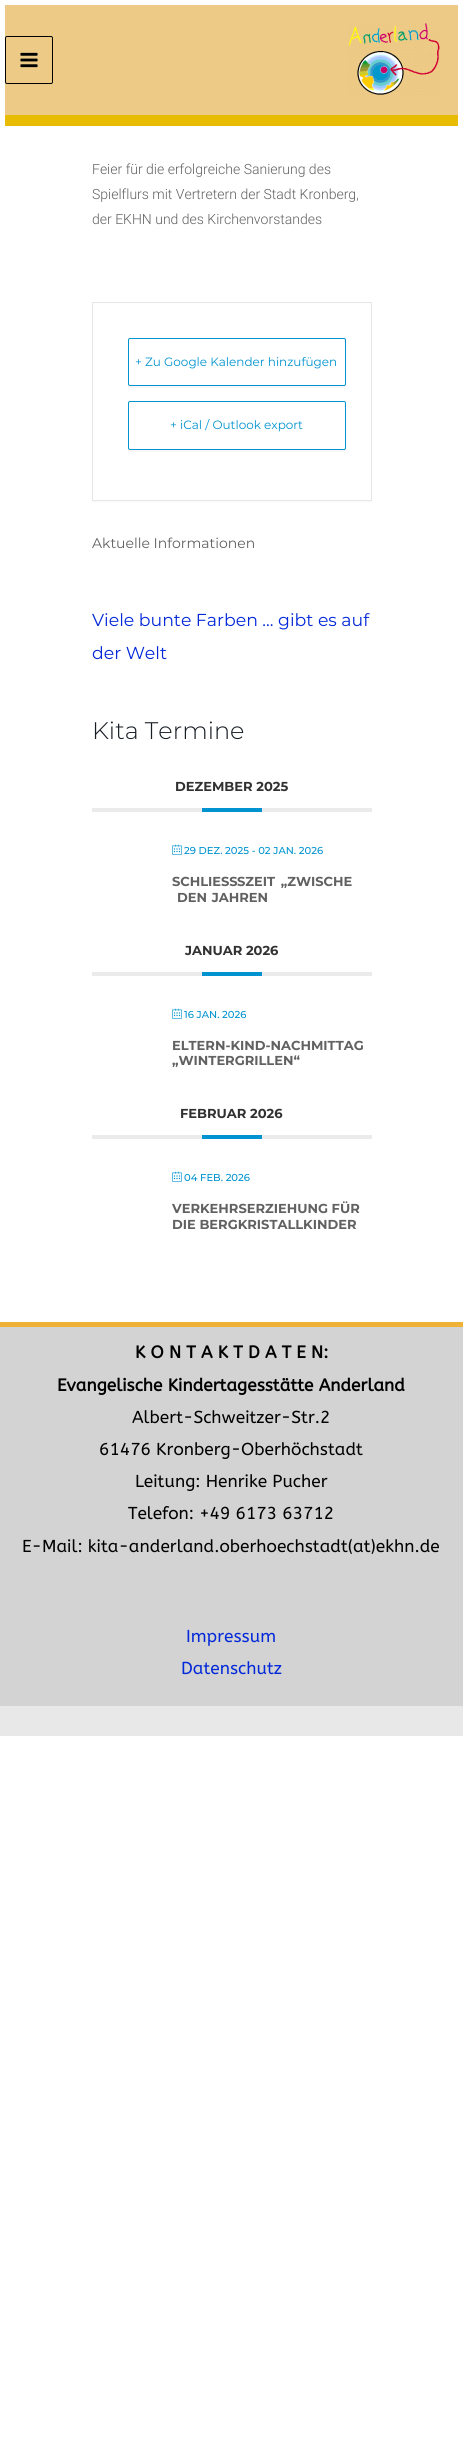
import math
import cairo

surface = cairo.ImageSurface(cairo.FORMAT_RGB24, 463, 2438)
cr = cairo.Context(surface)
options = cairo.FontOptions()
options.set_hint_metrics(cairo.HINT_METRICS_OFF)
options.set_hint_style(cairo.HINT_STYLE_NONE)
cr.set_font_options(options)
cr.set_miter_limit(4)


def rgb(code):
    cr.set_source_rgb(*(v / 255 for v in bytes.fromhex(code[-6:])))


def tracked(x, y, s, letter, word):
    cr.move_to(x, y)
    for ch in s:
        cr.show_text(ch)
        cr.rel_move_to(letter + word * (ch == ' '), 0)


def rrect(x, y, w, h, r):
    cr.new_sub_path()
    for i, (u, v) in enumerate([(x + w - r, y + h - r), (x + r, y + h - r), (x + r, y + r), (x + w - r, y + r)]):
        cr.arc(u, v, r, i * math.pi / 2, (i + 1) * math.pi / 2)
    cr.close_path()


def image(path, x, y, w, h):
    cr.save()
    cr.set_source_surface(cairo.ImageSurface.create_from_png(path), x, y)
    cr.rectangle(x, y, w, h)
    cr.fill()
    cr.restore()


rgb("#ffffff")
cr.paint()
rgb("#edca85")
cr.rectangle(5, 5, 453, 110)
cr.fill()
rgb("#e8bc02")
cr.rectangle(5, 115, 453, 11)
cr.fill()
rrect(5.5, 36.5, 47, 47, 1.5)
rgb("#000000")
cr.set_line_width(1)
cr.stroke()
image("img/1.png", 20, 52, 18, 16)
image("img/2.png", 348, 23, 92, 72)
rgb("#fbfbfb")
cr.rectangle(92, 501, 280, 2)
cr.fill()
cr.rectangle(92.5, 302.5, 279, 198)
rgb("#e6e6e6")
cr.stroke()
rgb("#f7f7f7")
cr.new_path()
cr.move_to(128, 384)
cr.line_to(128, 386)
cr.curve_to(128, 387, 129, 388, 130, 388)
cr.line_to(344, 388)
cr.curve_to(345, 388, 346, 387, 346, 386)
cr.line_to(346, 384)
cr.curve_to(346, 385, 345, 386, 344, 386)
cr.line_to(130, 386)
cr.curve_to(129, 386, 128, 385, 128, 384)
cr.close_path()
cr.fill()
rrect(128.5, 338.5, 217, 47, 1.5)
rgb("#0093d0")
cr.stroke()
rgb("#f7f7f7")
cr.new_path()
cr.move_to(128, 448)
cr.line_to(128, 450)
cr.curve_to(128, 451, 129, 452, 130, 452)
cr.line_to(344, 452)
cr.curve_to(345, 452, 346, 451, 346, 450)
cr.line_to(346, 448)
cr.curve_to(346, 449, 345, 450, 344, 450)
cr.line_to(130, 450)
cr.curve_to(129, 450, 128, 449, 128, 448)
cr.close_path()
cr.fill()
rrect(128.5, 401.5, 217, 48, 1.5)
rgb("#0093d0")
cr.stroke()
rgb("#ebebeb")
cr.rectangle(92, 808, 280, 4)
cr.fill()
rgb("#0093d0")
cr.rectangle(202, 808, 60, 4)
cr.fill()
image("img/3.png", 172, 844, 10, 11)
rgb("#ebebeb")
cr.rectangle(92, 972, 280, 4)
cr.fill()
rgb("#0093d0")
cr.rectangle(202, 972, 60, 4)
cr.fill()
image("img/3.png", 172, 1008, 10, 11)
rgb("#ebebeb")
cr.rectangle(92, 1135, 280, 4)
cr.fill()
rgb("#0093d0")
cr.rectangle(202, 1135, 60, 4)
cr.fill()
image("img/3.png", 172, 1171, 10, 11)
for x, y, w, h, color in [
    (0, 1706, 463, 30, "#e8e8e8"),
    (0, 1327, 463, 379, "#d3d3d3"),
    (0, 1322, 463, 5, "#efb136"),
]:
    rgb(color)
    cr.rectangle(x, y, w, h)
    cr.fill()
cr.select_font_face("Roboto Light")
cr.set_font_size(14)
rgb("#616161")
for x, y, s in [
    (92, 174, "Feier für die erfolgreiche Sanierung des"),
    (92, 199, "Spielflurs mit Vertretern der Stadt Kronberg,"),
    (92, 224, "der EKHN und des Kirchenvorstandes"),
]:
    cr.move_to(x, y)
    cr.show_text(s)
cr.select_font_face("Montserrat")
cr.set_font_size(12)
rgb("#0093d0")
cr.move_to(135, 366)
cr.show_text("+ Zu Google Kalender hinzufügen")
cr.move_to(170, 429)
cr.show_text("+ iCal / Outlook export")
cr.set_font_size(14)
rgb("#616161")
cr.move_to(92, 548)
cr.show_text("Aktuelle Informationen")
cr.set_font_size(17.3)
rgb("#0228d9")
cr.move_to(92, 626)
cr.show_text("Viele bunte Farben … gibt es auf")
cr.move_to(92, 659)
cr.show_text("der Welt")
cr.select_font_face("Montserrat Light")
cr.set_font_size(24)
rgb("#171c24")
cr.move_to(92, 739)
cr.show_text("Kita Termine")
cr.select_font_face("Montserrat", cairo.FONT_SLANT_NORMAL, cairo.FONT_WEIGHT_BOLD)
cr.set_font_size(13)
rgb("#313131")
cr.move_to(175, 791)
cr.show_text("DEZEMBER 2025")
cr.select_font_face("Montserrat Medium")
cr.set_font_size(10)
rgb("#0093d0")
cr.move_to(184, 854)
cr.show_text("29 DEZ. 2025 - 02 JAN. 2026")
cr.select_font_face("Montserrat", cairo.FONT_SLANT_NORMAL, cairo.FONT_WEIGHT_BOLD)
cr.set_font_size(13)
rgb("#616161")
cr.move_to(172, 886)
cr.show_text("SCHLIESS")
tracked(237, 886, "SZEIT „ZWISCHE", 0, 2)
tracked(177, 902, "DEN JAHREN", 0, 1)
rgb("#313131")
cr.move_to(185, 955)
cr.show_text("JANUAR 2026")
cr.select_font_face("Montserrat Medium")
cr.set_font_size(10)
rgb("#0093d0")
cr.move_to(184, 1018)
cr.show_text("16 JAN. 2026")
cr.select_font_face("Montserrat", cairo.FONT_SLANT_NORMAL, cairo.FONT_WEIGHT_BOLD)
cr.set_font_size(13)
rgb("#616161")
cr.move_to(172, 1050)
cr.show_text("ELTERN-KIND-NACHMITTAG")
cr.move_to(172, 1065)
cr.show_text("„WINTERGRILLEN“")
rgb("#313131")
cr.move_to(180, 1118)
cr.show_text("FEBRUAR 2026")
cr.select_font_face("Montserrat Medium")
cr.set_font_size(10)
rgb("#0093d0")
cr.move_to(184, 1181)
cr.show_text("04 FEB. 2026")
cr.select_font_face("Montserrat", cairo.FONT_SLANT_NORMAL, cairo.FONT_WEIGHT_BOLD)
cr.set_font_size(13)
rgb("#616161")
cr.move_to(172, 1213)
cr.show_text("VERKEHRSERZIEHUNG FÜR")
cr.move_to(172, 1229)
cr.show_text("DIE BERGKRISTALLKINDER")
cr.select_font_face("ABeeZee", cairo.FONT_SLANT_NORMAL, cairo.FONT_WEIGHT_BOLD)
cr.set_font_size(17.3)
rgb("#000000")
cr.move_to(135, 1358)
cr.show_text("K O N T A K T D A T E N:")
cr.move_to(57, 1391)
cr.show_text("Evangelische Kindertagesstätte Anderland")
cr.select_font_face("ABeeZee")
for x, y, s in [
    (132, 1423, "Albert-Schweitzer-Str.2"),
    (99, 1455, "61476 Kronberg-Oberhöchstadt"),
    (135, 1487, "Leitung: Henrike Pucher"),
    (128, 1519, "Telefon: +49 6173 63712"),
    (22, 1552, "E-Mail: kita-anderland.oberhoechstadt(at)ekhn.de"),
]:
    cr.move_to(x, y)
    cr.show_text(s)
rgb("#0228d9")
cr.move_to(186, 1642)
cr.show_text("Impressum")
cr.move_to(181, 1674)
cr.show_text("Datenschutz")
surface.write_to_png("page.png")
